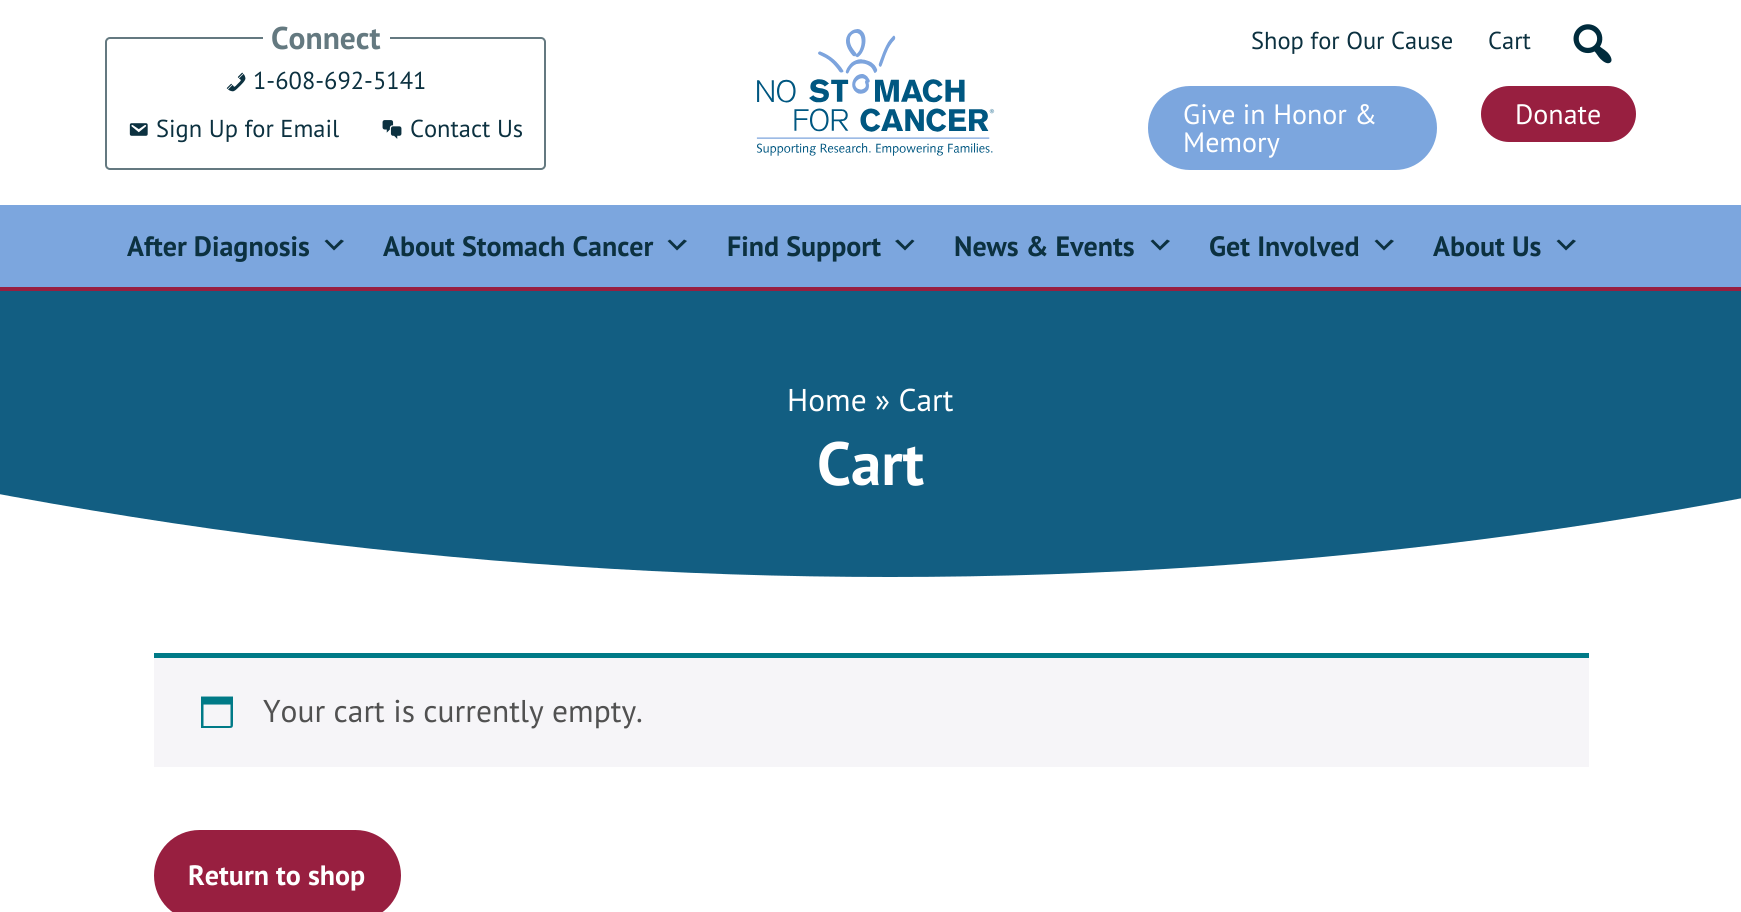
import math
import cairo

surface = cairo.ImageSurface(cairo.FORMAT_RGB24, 1741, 912)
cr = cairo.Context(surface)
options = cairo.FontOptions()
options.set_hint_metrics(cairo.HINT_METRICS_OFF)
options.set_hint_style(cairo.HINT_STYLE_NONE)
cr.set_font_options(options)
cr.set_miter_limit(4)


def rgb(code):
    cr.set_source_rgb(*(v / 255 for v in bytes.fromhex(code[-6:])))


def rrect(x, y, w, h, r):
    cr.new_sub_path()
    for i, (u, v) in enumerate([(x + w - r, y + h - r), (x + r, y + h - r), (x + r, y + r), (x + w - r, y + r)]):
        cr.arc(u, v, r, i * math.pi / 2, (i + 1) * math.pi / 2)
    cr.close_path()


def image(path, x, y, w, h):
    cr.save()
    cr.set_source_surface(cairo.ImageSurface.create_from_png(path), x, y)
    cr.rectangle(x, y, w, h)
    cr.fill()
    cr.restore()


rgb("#ffffff")
cr.paint()
rgb("#981f40")
cr.rectangle(0, 287, 1741, 4)
cr.fill()
rrect(106, 38, 439, 131, 4)
rgb("#647980")
cr.stroke()
rgb("#ffffff")
cr.rectangle(263, 37, 127, 2)
cr.fill()
image("img/1.png", 226, 72, 20, 20)
image("img/2.png", 129, 123, 19, 13)
image("img/3.png", 382, 120, 20, 19)
image("img/4.png", 756, 29, 239, 127)
rgb("#7ca6de")
rrect(1148, 86, 289, 84, 42)
cr.fill()
rgb("#981f40")
rrect(1481, 86, 155, 56, 28)
cr.fill()
image("img/5.png", 1573, 24, 39, 40)
rgb("#7ca6de")
cr.rectangle(0, 205, 1741, 82)
cr.fill()
rgb("#0c3140")
cr.new_path()
cr.move_to(327, 239.5)
cr.line_to(334, 246.5)
cr.line_to(341, 239.5)
cr.line_to(344, 241)
cr.line_to(334, 250.5)
cr.line_to(324.5, 241)
cr.close_path()
cr.fill()
cr.new_path()
cr.move_to(670, 239.5)
cr.line_to(677, 246.5)
cr.line_to(684, 239.5)
cr.line_to(687, 241)
cr.line_to(677, 250.5)
cr.line_to(667.5, 241)
cr.close_path()
cr.fill()
cr.new_path()
cr.move_to(898, 239.5)
cr.line_to(905, 246.5)
cr.line_to(912, 239.5)
cr.line_to(914.5, 241)
cr.line_to(905, 250.5)
cr.line_to(895, 241)
cr.close_path()
cr.fill()
cr.new_path()
cr.move_to(1153, 239.5)
cr.line_to(1160, 246.5)
cr.line_to(1167, 239.5)
cr.line_to(1170, 241)
cr.line_to(1160, 250.5)
cr.line_to(1150.5, 241)
cr.close_path()
cr.fill()
cr.new_path()
cr.move_to(1377, 239.5)
cr.line_to(1384, 246.5)
cr.line_to(1391, 239.5)
cr.line_to(1394, 241)
cr.line_to(1384, 250.5)
cr.line_to(1374.5, 241)
cr.close_path()
cr.fill()
cr.new_path()
cr.move_to(1559, 239.5)
cr.line_to(1566, 246.5)
cr.line_to(1573, 239.5)
cr.line_to(1576, 241)
cr.line_to(1566, 250.5)
cr.line_to(1556.5, 241)
cr.close_path()
cr.fill()
rgb("#125e82")
cr.rectangle(0, 291, 1741, 286)
cr.fill()
rgb("#ffffff")
cr.set_fill_rule(cairo.FILL_RULE_EVEN_ODD)
cr.new_path()
cr.move_to(-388, 407)
cr.curve_to(39, 520, 466, 577, 890, 577)
cr.curve_to(1315, 577, 1729, 520, 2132, 407)
cr.line_to(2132, 592)
cr.line_to(-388, 592)
cr.close_path()
cr.fill()
rgb("#f6f5f8")
cr.rectangle(154, 658, 1435, 109)
cr.fill()
rgb("#007a87")
cr.rectangle(154, 653, 1435, 5)
cr.fill()
cr.set_fill_rule(cairo.FILL_RULE_WINDING)
cr.new_path()
cr.move_to(230.5, 704.5)
cr.line_to(203.5, 704.5)
cr.line_to(203.5, 726)
cr.line_to(230.5, 726)
cr.close_path()
cr.move_to(233, 696.5)
cr.line_to(233, 721)
cr.curve_to(233, 728.5, 233.5, 728, 225.5, 728)
cr.line_to(201, 728)
cr.line_to(201, 696.5)
cr.close_path()
cr.fill()
rgb("#981f40")
rrect(154, 830, 247, 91, 45.5)
cr.fill()
cr.select_font_face("PT Sans", cairo.FONT_SLANT_NORMAL, cairo.FONT_WEIGHT_BOLD)
cr.set_font_size(31.5)
rgb("#647980")
cr.move_to(271, 49)
cr.show_text("Connect")
cr.select_font_face("PT Sans")
cr.set_font_size(24.5)
rgb("#0c3140")
for x, y, s in [
    (253, 89, "1-608-692-5141"),
    (156, 137, "Sign Up for Email"),
    (410, 137, "Contact Us"),
]:
    cr.move_to(x, y)
    cr.show_text(s)
cr.set_font_size(28)
rgb("#ffffff")
for x, y, s in [
    (1183, 124, "Give in Honor &"),
    (1183, 152, "Memory"),
    (1515, 124, "Donate"),
]:
    cr.move_to(x, y)
    cr.show_text(s)
cr.set_font_size(24.5)
rgb("#0c3140")
cr.move_to(1251, 49)
cr.show_text("Shop for Our Cause")
cr.move_to(1488, 49)
cr.show_text("Cart")
cr.select_font_face("PT Sans", cairo.FONT_SLANT_NORMAL, cairo.FONT_WEIGHT_BOLD)
cr.set_font_size(28)
for x, y, s in [
    (127, 256, "After Diagnosis"),
    (383, 256, "About Stomach Cancer"),
    (727, 256, "Find Support"),
    (954, 256, "News & Events"),
    (1209, 256, "Get Involved"),
    (1433, 256, "About Us"),
]:
    cr.move_to(x, y)
    cr.show_text(s)
cr.select_font_face("PT Sans")
cr.set_font_size(31.5)
rgb("#ffffff")
cr.move_to(787, 411)
cr.show_text("Home » Cart")
cr.select_font_face("PT Sans", cairo.FONT_SLANT_NORMAL, cairo.FONT_WEIGHT_BOLD)
cr.set_font_size(61)
cr.move_to(817, 485)
cr.show_text("Cart")
cr.select_font_face("PT Sans")
cr.set_font_size(31.5)
rgb("#515151")
cr.move_to(263, 722)
cr.show_text("Your cart is currently empty.")
cr.select_font_face("PT Sans", cairo.FONT_SLANT_NORMAL, cairo.FONT_WEIGHT_BOLD)
cr.set_font_size(28)
rgb("#ffffff")
cr.move_to(188, 885)
cr.show_text("Return to shop")
surface.write_to_png("page.png")
